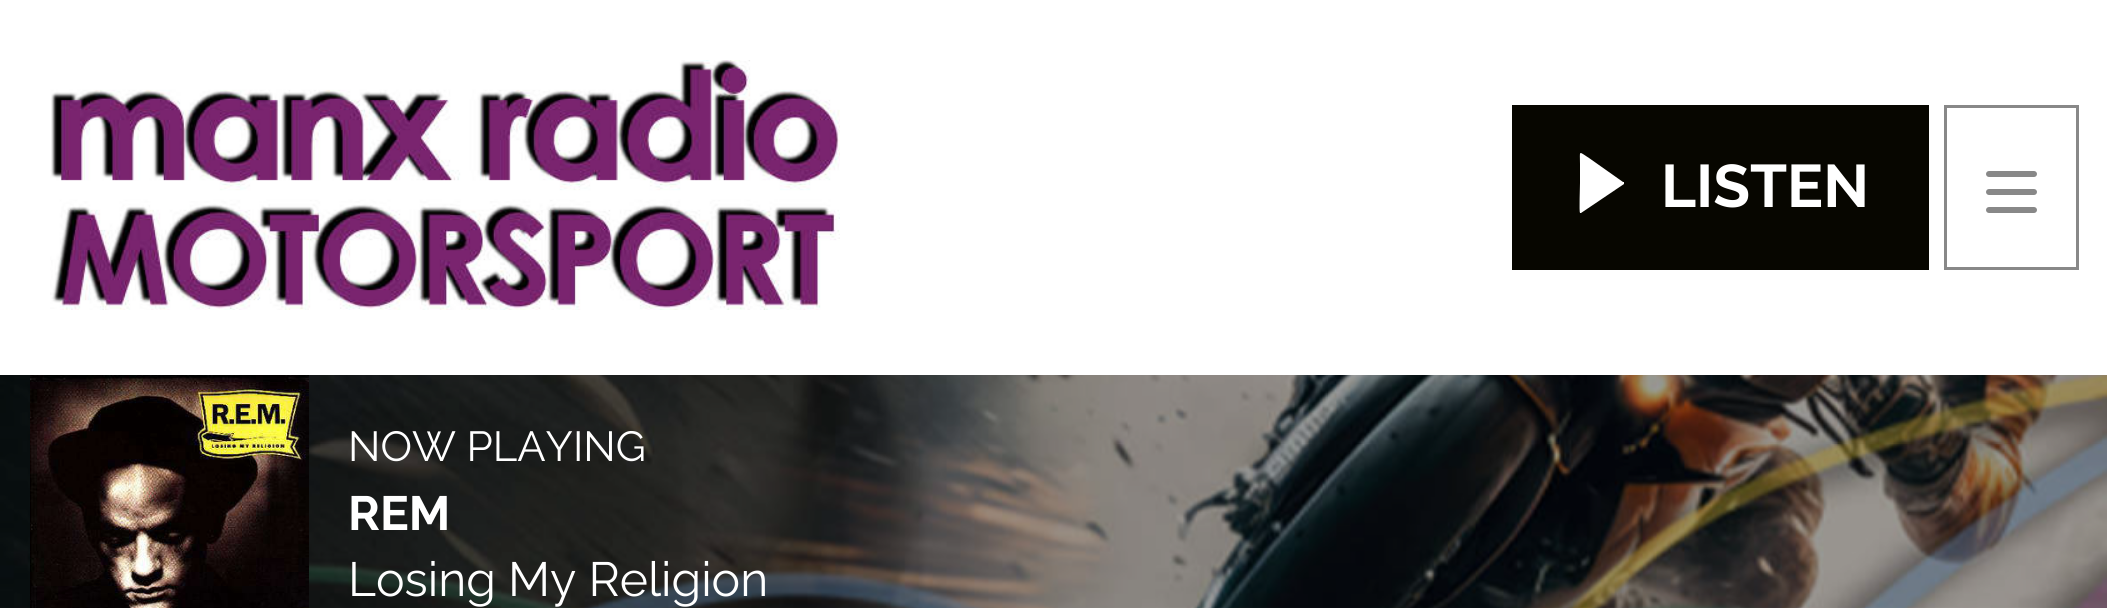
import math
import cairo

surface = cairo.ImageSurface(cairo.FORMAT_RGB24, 2107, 608)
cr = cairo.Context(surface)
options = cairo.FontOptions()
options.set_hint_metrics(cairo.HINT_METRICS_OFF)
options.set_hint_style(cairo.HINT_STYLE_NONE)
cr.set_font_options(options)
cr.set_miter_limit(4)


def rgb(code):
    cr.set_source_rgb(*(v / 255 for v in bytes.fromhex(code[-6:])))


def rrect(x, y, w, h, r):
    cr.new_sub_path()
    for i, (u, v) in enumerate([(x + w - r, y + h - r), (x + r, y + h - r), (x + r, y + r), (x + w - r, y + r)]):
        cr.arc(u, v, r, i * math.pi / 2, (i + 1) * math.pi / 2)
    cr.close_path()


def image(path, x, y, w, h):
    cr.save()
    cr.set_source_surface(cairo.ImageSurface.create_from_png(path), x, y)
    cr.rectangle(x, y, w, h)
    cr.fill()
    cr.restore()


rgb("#ffffff")
cr.paint()
image("img/1.png", 50, 60, 790, 250)
rgb("#070600")
cr.rectangle(1512, 105, 417, 165)
cr.fill()
rgb("#ffffff")
cr.new_path()
cr.move_to(1623, 182)
cr.line_to(1589, 158)
cr.curve_to(1578, 151, 1580, 150, 1580, 164)
cr.line_to(1580, 183)
cr.curve_to(1580, 186, 1579, 212, 1580, 213)
cr.line_to(1581, 213)
cr.line_to(1624, 184)
cr.line_to(1624, 183)
cr.line_to(1624, 182)
cr.close_path()
cr.fill()
cr.rectangle(1945.5, 106.5, 132, 162)
rgb("#888888")
cr.set_line_width(3)
cr.stroke()
rrect(1986, 171, 51, 6, 3)
cr.fill()
rrect(1986, 189, 51, 6, 3)
cr.fill()
rrect(1986, 207, 51, 6, 3)
cr.fill()
image("img/2.png", 0, 375, 2107, 233)
image("img/3.png", 30, 375, 279, 233)
cr.select_font_face("Raleway", cairo.FONT_SLANT_NORMAL, cairo.FONT_WEIGHT_BOLD)
cr.set_font_size(60)
rgb("#ffffff")
cr.move_to(1661, 207)
cr.show_text("LISTEN")
cr.select_font_face("Raleway")
cr.set_font_size(42)
cr.move_to(348, 461)
cr.show_text("NOW PLAYING")
cr.select_font_face("Raleway", cairo.FONT_SLANT_NORMAL, cairo.FONT_WEIGHT_BOLD)
cr.set_font_size(48)
cr.move_to(348, 530)
cr.show_text("REM")
cr.select_font_face("Raleway")
cr.move_to(348, 596)
cr.show_text("Losing My Religion")
surface.write_to_png("page.png")
